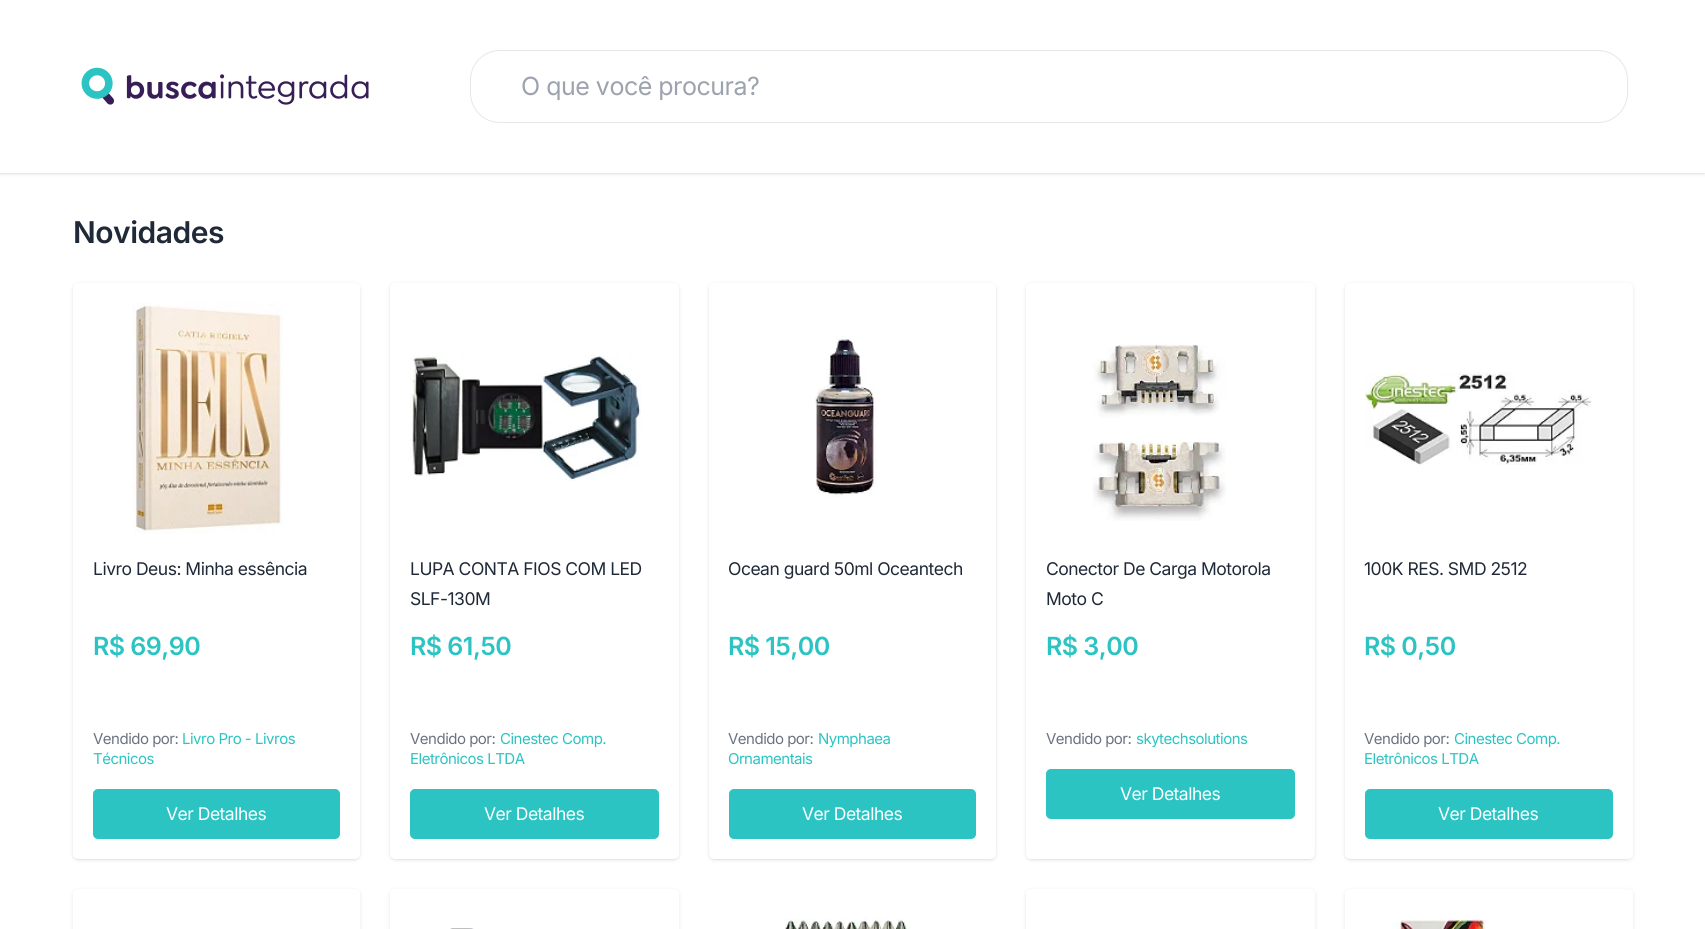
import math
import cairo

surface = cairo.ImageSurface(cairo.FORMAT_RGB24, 1705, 929)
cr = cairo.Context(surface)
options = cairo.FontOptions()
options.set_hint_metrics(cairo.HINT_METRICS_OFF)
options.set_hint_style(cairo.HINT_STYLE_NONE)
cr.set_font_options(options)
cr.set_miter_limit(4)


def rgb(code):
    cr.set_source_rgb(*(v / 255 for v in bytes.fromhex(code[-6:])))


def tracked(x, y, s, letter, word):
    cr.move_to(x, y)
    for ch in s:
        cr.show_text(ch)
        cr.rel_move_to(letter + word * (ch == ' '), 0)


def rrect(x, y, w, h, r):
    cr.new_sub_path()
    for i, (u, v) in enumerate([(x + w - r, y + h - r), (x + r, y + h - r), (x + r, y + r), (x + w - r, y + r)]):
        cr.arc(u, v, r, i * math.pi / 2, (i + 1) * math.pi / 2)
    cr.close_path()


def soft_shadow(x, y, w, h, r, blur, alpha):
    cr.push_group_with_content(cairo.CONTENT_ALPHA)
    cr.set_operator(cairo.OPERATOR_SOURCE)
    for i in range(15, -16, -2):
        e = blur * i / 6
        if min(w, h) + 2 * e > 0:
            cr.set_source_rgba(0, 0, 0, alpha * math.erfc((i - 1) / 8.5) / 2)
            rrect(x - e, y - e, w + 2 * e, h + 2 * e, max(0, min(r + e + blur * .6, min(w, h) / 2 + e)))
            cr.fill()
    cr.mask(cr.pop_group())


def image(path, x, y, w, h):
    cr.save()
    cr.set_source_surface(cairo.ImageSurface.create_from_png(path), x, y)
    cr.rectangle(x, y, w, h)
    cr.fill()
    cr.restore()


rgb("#ffffff")
cr.paint()
rgb("#000000")
soft_shadow(1, 3, 1703, 170, 0, 1, 0.1)
soft_shadow(0, 1, 1705, 173, 0, 2, 0.1)
rgb("#ffffff")
cr.rectangle(0, 0, 1705, 173)
cr.fill()
image("img/1.png", 81, 67, 288, 38)
rrect(470.5, 50.5, 1157, 72, 29.5)
rgb("#e5e7eb")
cr.set_line_width(1)
cr.stroke()
rgb("#000000")
soft_shadow(74, 285, 285, 574, 4, 1, 0.1)
soft_shadow(73, 284, 287, 576, 5, 2, 0.1)
rgb("#ffffff")
rrect(73, 283, 287, 576, 5)
cr.fill()
image("img/2.png", 132, 302, 151, 232)
rgb("#2bc4c3")
rrect(93, 789, 247, 50, 5)
cr.fill()
rgb("#000000")
soft_shadow(391, 285, 287, 574, 4, 1, 0.1)
soft_shadow(390, 284, 289, 576, 5, 2, 0.1)
rgb("#ffffff")
rrect(390, 283, 289, 576, 5)
cr.fill()
image("img/3.png", 410, 355, 231, 126)
rgb("#2bc4c3")
rrect(410, 789, 249, 50, 5)
cr.fill()
rgb("#000000")
soft_shadow(710, 285, 285, 574, 4, 1, 0.1)
soft_shadow(709, 284, 287, 576, 5, 2, 0.1)
rgb("#ffffff")
rrect(709, 283, 287, 576, 5)
cr.fill()
image("img/4.png", 815, 336, 62, 162)
rgb("#2bc4c3")
rrect(729, 789, 247, 50, 5)
cr.fill()
rgb("#000000")
soft_shadow(1028, 285, 286, 574, 4, 1, 0.1)
soft_shadow(1026, 284, 289, 576, 5, 2, 0.1)
rgb("#ffffff")
rrect(1026, 283, 289, 576, 5)
cr.fill()
image("img/5.png", 1092, 344, 134, 177)
rgb("#2bc4c3")
rrect(1046, 769, 249, 50, 5)
cr.fill()
rgb("#000000")
soft_shadow(1346, 285, 285, 574, 4, 1, 0.1)
soft_shadow(1345, 284, 288, 576, 5, 2, 0.1)
rgb("#ffffff")
rrect(1345, 283, 288, 576, 5)
cr.fill()
image("img/6.png", 1365, 372, 227, 93)
rgb("#2bc4c3")
rrect(1365, 789, 248, 50, 5)
cr.fill()
cr.save()
cr.set_fill_rule(cairo.FILL_RULE_EVEN_ODD)
cr.new_path()
cr.move_to(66, 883)
cr.line_to(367, 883)
cr.line_to(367, 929)
cr.line_to(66, 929)
cr.close_path()
cr.move_to(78, 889)
cr.line_to(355, 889)
cr.curve_to(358, 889, 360, 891, 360, 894)
cr.line_to(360, 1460)
cr.curve_to(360, 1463, 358, 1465, 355, 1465)
cr.line_to(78, 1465)
cr.curve_to(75, 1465, 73, 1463, 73, 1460)
cr.line_to(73, 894)
cr.curve_to(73, 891, 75, 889, 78, 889)
cr.close_path()
cr.clip()
rgb("#000000")
soft_shadow(73, 890, 287, 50, 5, 2, 0.1)
cr.restore()
rgb("#000000")
soft_shadow(390, 890, 289, 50, 5, 2, 0.1)
rgb("#ffffff")
rrect(390, 889, 289, 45, 5)
cr.fill()
image("img/7.png", 450, 928, 24, 1)
image("img/8.png", 785, 918, 125, 11)
rgb("#000000")
soft_shadow(1026, 890, 289, 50, 5, 2, 0.1)
rgb("#ffffff")
rrect(1026, 889, 289, 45, 5)
cr.fill()
rgb("#000000")
soft_shadow(1345, 890, 288, 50, 5, 2, 0.1)
rgb("#ffffff")
rrect(1345, 889, 288, 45, 5)
cr.fill()
image("img/9.png", 1392, 918, 94, 11)
cr.select_font_face("Inter")
cr.set_font_size(25)
rgb("#9ca3af")
tracked(521, 95, "O que você procura?", -0.5, 0)
cr.select_font_face("Inter SemiBold")
cr.set_font_size(30)
rgb("#1f2937")
tracked(73, 243, "Novidades", -0.5, 0)
cr.select_font_face("Inter")
cr.set_font_size(17.5)
tracked(93, 575, "Livro Deus: Minha essência", -0.5, 0)
cr.select_font_face("Inter SemiBold")
cr.set_font_size(25)
rgb("#2bc4c3")
tracked(93, 655, "R$ 69,90", -0.5, 0)
cr.select_font_face("Inter")
cr.set_font_size(15)
rgb("#6b7280")
tracked(93, 744, "Vendido por:", -0.5, 0)
rgb("#2bc4c3")
tracked(182, 744, "Livro Pro - Livros", -0.5, 0)
tracked(93, 764, "Técnicos", -0.5, 0)
cr.set_font_size(17.5)
rgb("#ffffff")
tracked(166, 820, "Ver Detalhes", -0.5, 0)
rgb("#1f2937")
tracked(410, 575, "LUPA CONTA FIOS COM LED", -0.5, 0)
tracked(410, 605, "SLF-130M", -0.5, 0)
cr.select_font_face("Inter SemiBold")
cr.set_font_size(25)
rgb("#2bc4c3")
tracked(410, 655, "R$ 61,50", -0.5, 0)
cr.select_font_face("Inter")
cr.set_font_size(15)
rgb("#6b7280")
tracked(410, 744, "Vendido por:", -0.5, 0)
rgb("#2bc4c3")
tracked(500, 744, "Cinestec Comp.", -0.5, 0)
tracked(410, 764, "Eletrônicos LTDA", -0.5, 0)
cr.set_font_size(17.5)
rgb("#ffffff")
tracked(484, 820, "Ver Detalhes", -0.5, 0)
rgb("#1f2937")
tracked(728, 575, "Ocean guard 50ml Oceantech", -0.5, 0)
cr.select_font_face("Inter SemiBold")
cr.set_font_size(25)
rgb("#2bc4c3")
tracked(728, 655, "R$ 15,00", -0.5, 0)
cr.select_font_face("Inter")
cr.set_font_size(15)
rgb("#6b7280")
tracked(728, 744, "Vendido por:", -0.5, 0)
rgb("#2bc4c3")
tracked(818, 744, "Nymphaea", -0.5, 0)
tracked(728, 764, "Ornamentais", -0.5, 0)
cr.set_font_size(17.5)
rgb("#ffffff")
tracked(802, 820, "Ver Detalhes", -0.5, 0)
rgb("#1f2937")
tracked(1046, 575, "Conector De Carga Motorola", -0.5, 0)
tracked(1046, 605, "Moto C", -0.5, 0)
cr.select_font_face("Inter SemiBold")
cr.set_font_size(25)
rgb("#2bc4c3")
tracked(1046, 655, "R$ 3,00", -0.5, 0)
cr.select_font_face("Inter")
cr.set_font_size(15)
rgb("#6b7280")
tracked(1046, 744, "Vendido por:", -0.5, 0)
rgb("#2bc4c3")
tracked(1136, 744, "skytechsolutions", -0.5, 0)
cr.set_font_size(17.5)
rgb("#ffffff")
tracked(1120, 800, "Ver Detalhes", -0.5, 0)
rgb("#1f2937")
tracked(1364, 575, "100K RES. SMD 2512", -0.5, 0)
cr.select_font_face("Inter SemiBold")
cr.set_font_size(25)
rgb("#2bc4c3")
tracked(1364, 655, "R$ 0,50", -0.5, 0)
cr.select_font_face("Inter")
cr.set_font_size(15)
rgb("#6b7280")
tracked(1364, 744, "Vendido por:", -0.5, 0)
rgb("#2bc4c3")
tracked(1454, 744, "Cinestec Comp.", -0.5, 0)
tracked(1364, 764, "Eletrônicos LTDA", -0.5, 0)
cr.set_font_size(17.5)
rgb("#ffffff")
tracked(1438, 820, "Ver Detalhes", -0.5, 0)
surface.write_to_png("page.png")
